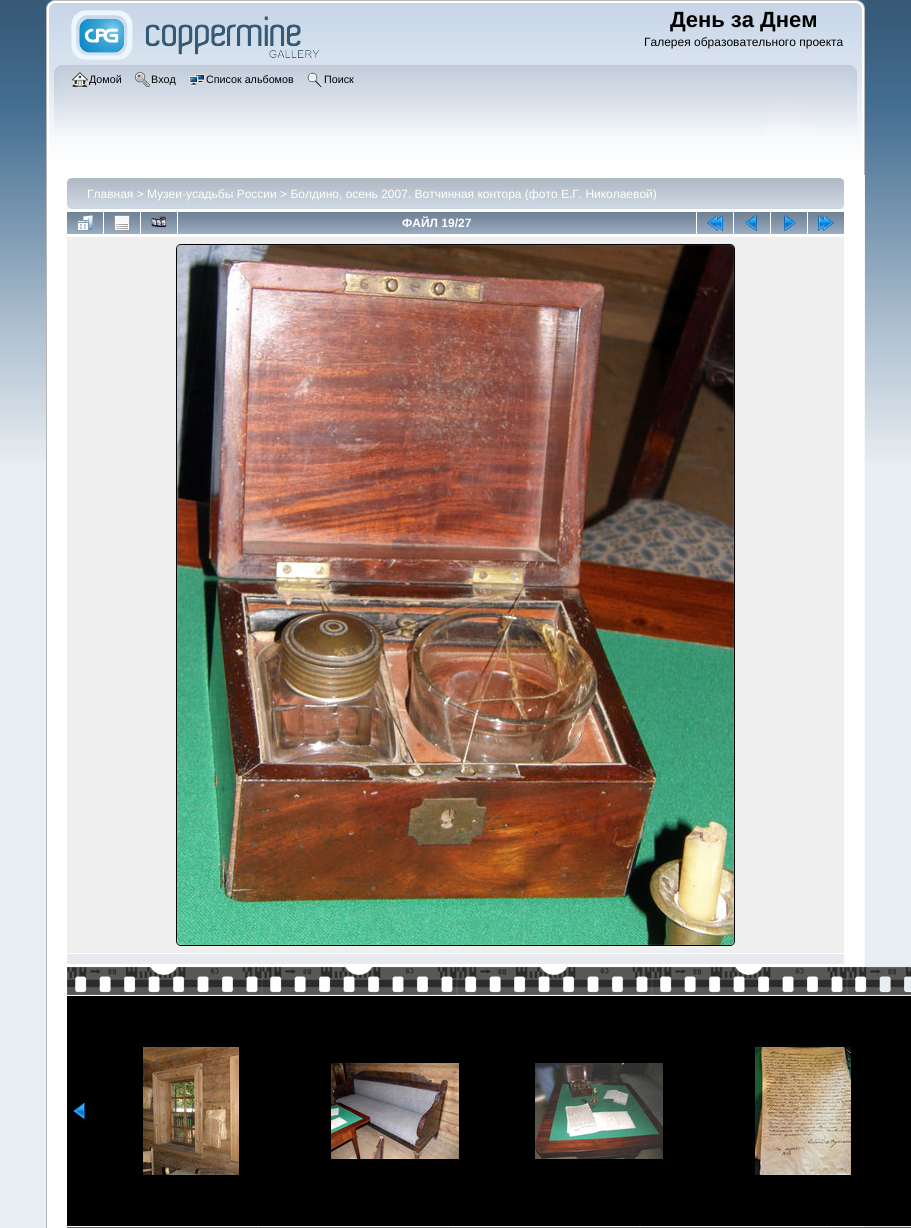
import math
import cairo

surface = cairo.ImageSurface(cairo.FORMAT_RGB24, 911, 1228)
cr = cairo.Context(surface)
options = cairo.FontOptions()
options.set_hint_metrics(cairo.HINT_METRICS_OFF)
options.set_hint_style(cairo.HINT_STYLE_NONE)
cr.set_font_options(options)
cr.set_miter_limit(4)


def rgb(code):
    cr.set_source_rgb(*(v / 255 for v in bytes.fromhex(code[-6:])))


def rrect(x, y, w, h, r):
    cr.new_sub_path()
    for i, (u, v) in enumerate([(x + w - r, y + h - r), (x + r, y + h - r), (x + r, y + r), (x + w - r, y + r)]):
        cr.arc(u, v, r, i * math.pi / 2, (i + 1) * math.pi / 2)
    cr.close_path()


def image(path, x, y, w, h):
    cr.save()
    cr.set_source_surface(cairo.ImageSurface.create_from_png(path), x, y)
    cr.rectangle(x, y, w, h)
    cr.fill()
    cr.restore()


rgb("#e9eef2")
cr.paint()
image("img/1.png", 0, 0, 911, 462)
image("img/2.png", 46, 0, 811, 65)
image("img/3.png", 857, 0, 8, 65)
image("img/4.png", 71, 10, 248, 50)
image("img/5.png", 46, 65, 805, 110)
image("img/6.png", 851, 65, 14, 110)
image("img/7.png", 72, 72, 16, 16)
image("img/8.png", 135, 72, 15, 15)
image("img/9.png", 189, 74, 16, 12)
image("img/10.png", 307, 72, 16, 15)
for x, y, w, h, color in [
    (47, 175, 817, 1053, "#ffffff"),
    (46, 175, 1, 1053, "#b7b7b7"),
    (864, 175, 1, 1053, "#f8f8f8"),
]:
    rgb(color)
    cr.rectangle(x, y, w, h)
    cr.fill()
image("img/11.png", 67, 178, 773, 31)
image("img/12.png", 840, 178, 4, 31)
image("img/13.png", 67, 212, 36, 22)
image("img/14.png", 77, 215, 16, 16)
image("img/13.png", 104, 212, 36, 22)
image("img/15.png", 114, 215, 16, 16)
image("img/13.png", 141, 212, 36, 22)
image("img/16.png", 151, 216, 16, 12)
image("img/17.png", 178, 212, 518, 22)
image("img/13.png", 697, 212, 36, 22)
image("img/18.png", 707, 215, 16, 16)
image("img/13.png", 734, 212, 36, 22)
image("img/19.png", 745, 215, 12, 16)
image("img/13.png", 771, 212, 36, 22)
image("img/20.png", 784, 215, 12, 16)
image("img/13.png", 808, 212, 36, 22)
image("img/21.png", 818, 215, 16, 16)
rgb("#efefef")
cr.rectangle(67, 237, 777, 716)
cr.fill()
rrect(176.5, 244.5, 558, 701, 4.5)
rgb("#000000")
cr.set_line_width(1)
cr.stroke()
image("img/22.png", 177, 245, 557, 700)
rgb("#e7eaef")
cr.rectangle(67, 954, 777, 10)
cr.fill()
image("img/23.png", 67, 967, 844, 28)
rgb("#000000")
cr.rectangle(67, 996, 844, 230)
cr.fill()
image("img/24.png", 73, 1103, 12, 16)
image("img/25.png", 143, 1047, 96, 128)
image("img/26.png", 331, 1063, 128, 96)
image("img/27.png", 535, 1063, 128, 96)
image("img/28.png", 755, 1047, 96, 128)
image("img/29.png", 67, 1227, 844, 1)
cr.select_font_face("Liberation Sans", cairo.FONT_SLANT_NORMAL, cairo.FONT_WEIGHT_BOLD)
cr.set_font_size(22)
cr.move_to(670, 27)
cr.show_text("День за Днем")
cr.select_font_face("Liberation Sans")
cr.set_font_size(12)
cr.move_to(644, 46)
cr.show_text("Галерея образовательного проекта")
cr.set_font_size(10.75)
for x, y, s in [
    (89, 83, "Домой"),
    (151, 83, "Вход"),
    (206, 83, "Список альбомов"),
    (324, 83, "Поиск"),
]:
    cr.move_to(x, y)
    cr.show_text(s)
cr.set_font_size(12)
rgb("#ffffff")
cr.move_to(87, 198)
cr.show_text("Главная > Музеи-усадьбы России > Болдино, осень 2007. Вотчинная контора (фото Е.Г. Николаевой)")
cr.select_font_face("Liberation Sans", cairo.FONT_SLANT_NORMAL, cairo.FONT_WEIGHT_BOLD)
cr.move_to(402, 227)
cr.show_text("ФАЙЛ 19/27")
surface.write_to_png("page.png")
